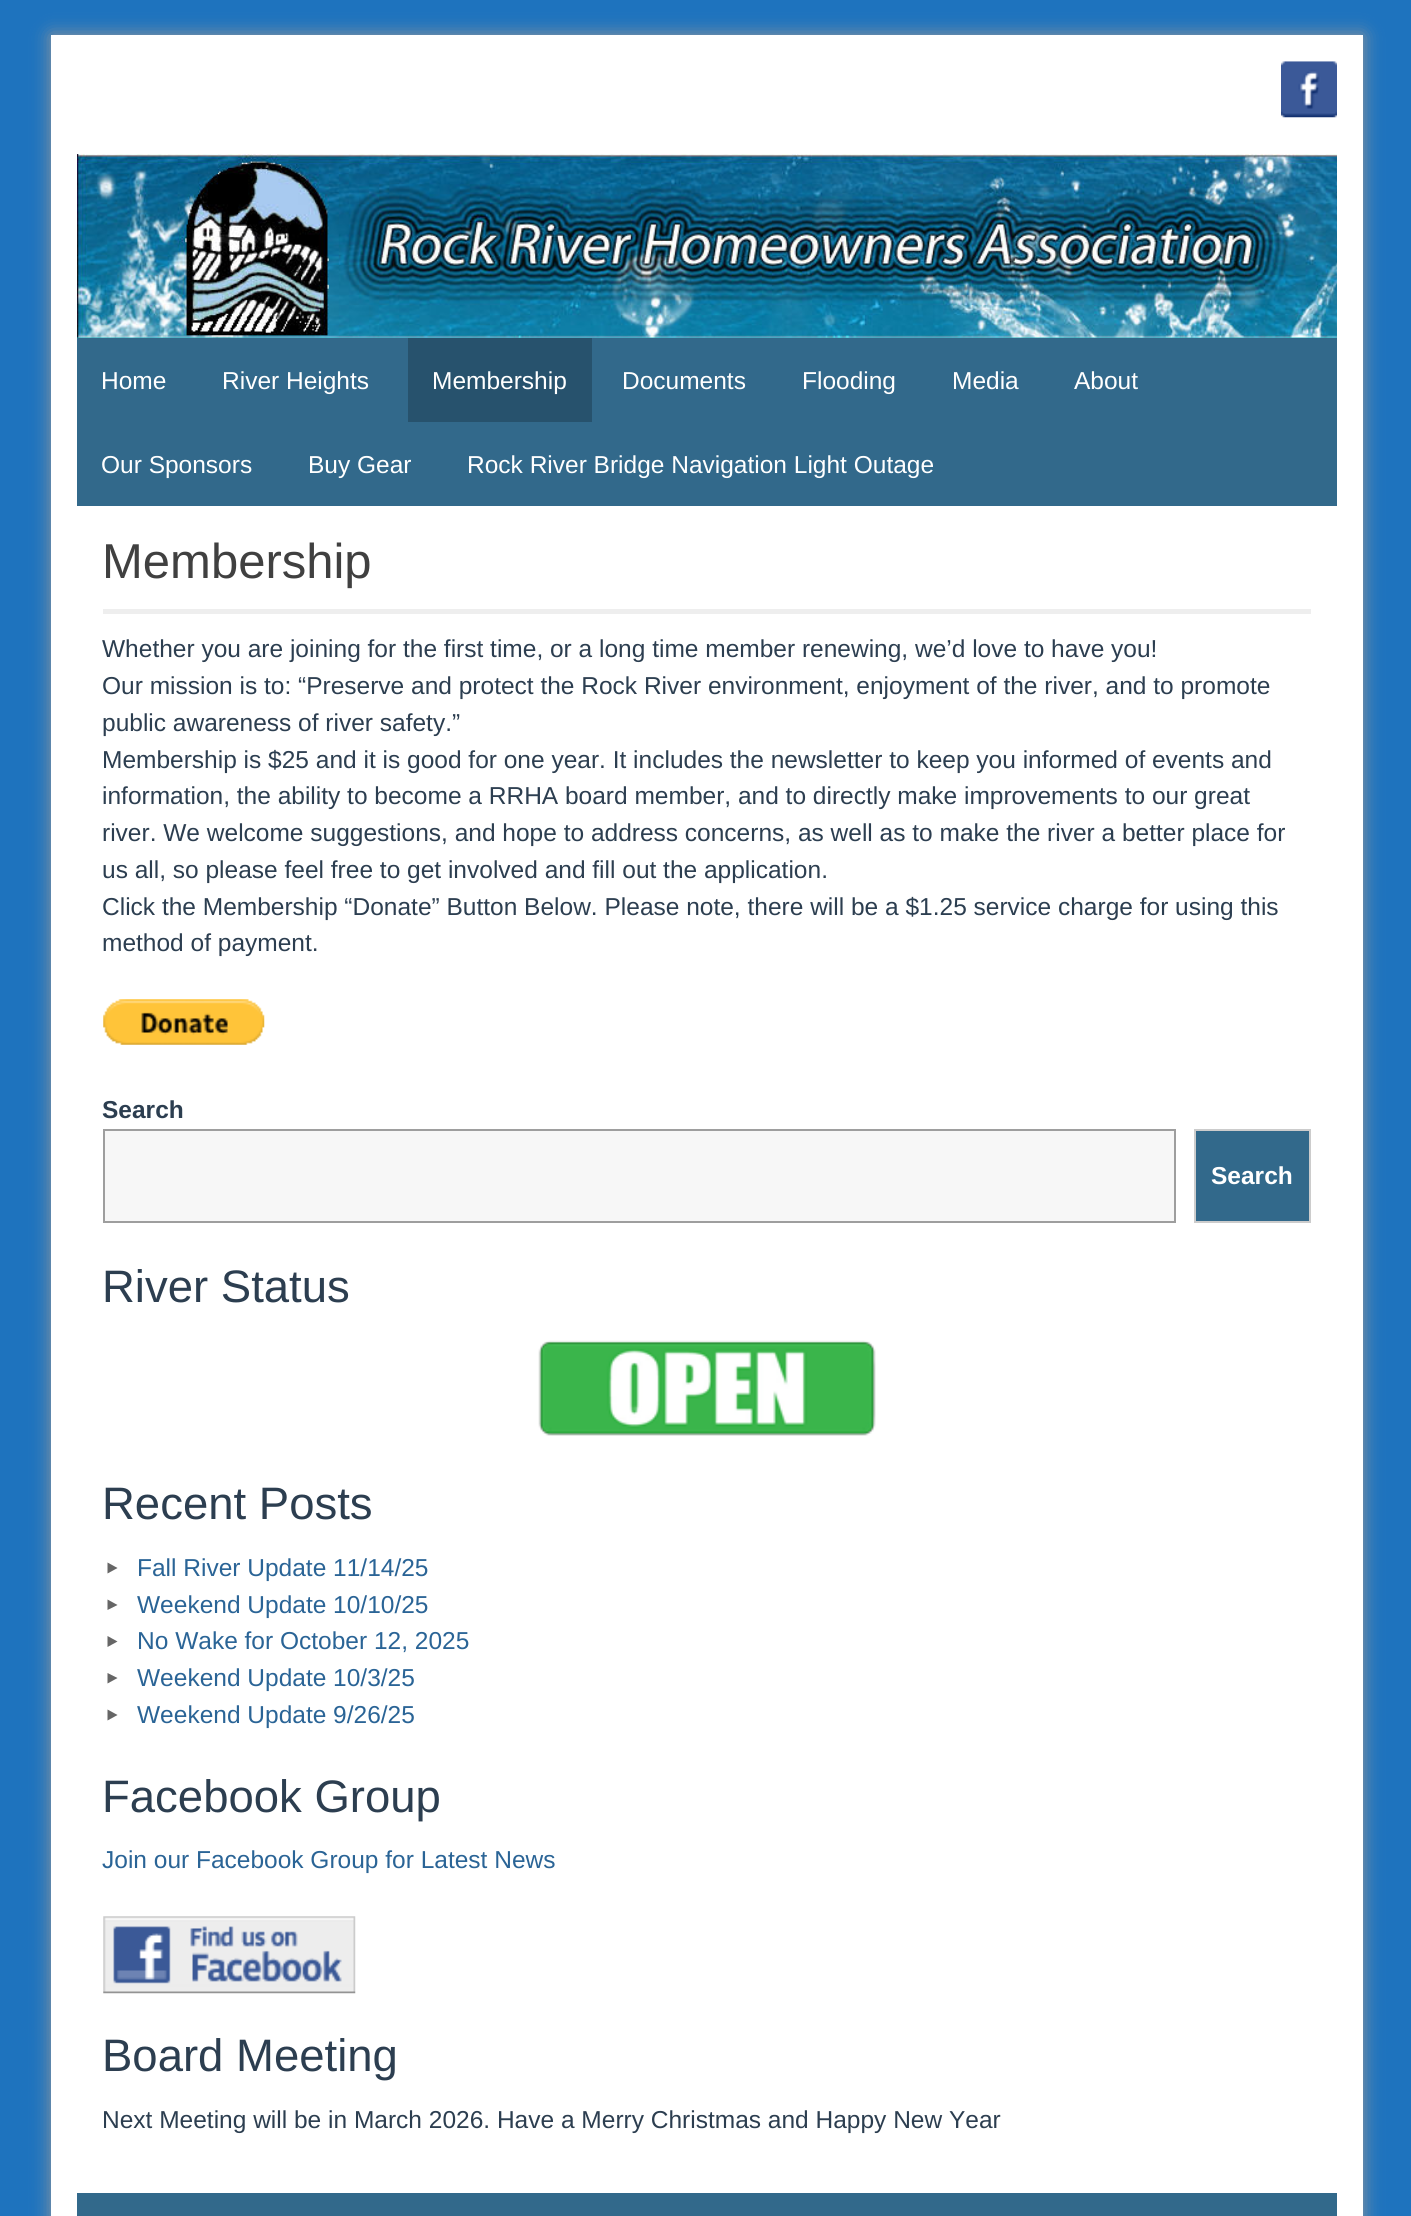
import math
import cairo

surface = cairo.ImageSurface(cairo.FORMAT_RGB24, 1411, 2216)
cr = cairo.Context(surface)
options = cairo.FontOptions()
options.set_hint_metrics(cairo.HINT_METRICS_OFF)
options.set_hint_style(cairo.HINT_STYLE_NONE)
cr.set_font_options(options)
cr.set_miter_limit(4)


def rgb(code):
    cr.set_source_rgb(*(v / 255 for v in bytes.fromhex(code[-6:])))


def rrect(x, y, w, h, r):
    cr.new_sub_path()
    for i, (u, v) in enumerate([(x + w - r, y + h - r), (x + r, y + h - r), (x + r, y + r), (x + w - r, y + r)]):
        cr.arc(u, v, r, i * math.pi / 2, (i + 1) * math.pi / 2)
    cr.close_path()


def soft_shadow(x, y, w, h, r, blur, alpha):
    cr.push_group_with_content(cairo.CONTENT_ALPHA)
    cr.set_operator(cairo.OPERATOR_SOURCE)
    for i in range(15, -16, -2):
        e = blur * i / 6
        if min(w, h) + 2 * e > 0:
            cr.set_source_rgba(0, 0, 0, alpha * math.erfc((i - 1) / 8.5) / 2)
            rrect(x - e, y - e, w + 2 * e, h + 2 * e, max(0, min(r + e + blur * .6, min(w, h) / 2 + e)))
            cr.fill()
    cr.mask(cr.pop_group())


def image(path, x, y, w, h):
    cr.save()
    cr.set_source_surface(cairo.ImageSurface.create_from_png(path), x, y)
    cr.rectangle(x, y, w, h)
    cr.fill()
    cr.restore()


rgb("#1e73be")
cr.paint()
rgb("#999999")
soft_shadow(51, 35, 1312, 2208, 0, 9, 1)
rgb("#ffffff")
cr.rectangle(51, 35, 1312, 2181)
cr.fill()
image("img/1.png", 1281, 61, 56, 57)
rgb("#00adb3")
cr.rectangle(77, 337, 1260, 1)
cr.fill()
image("img/2.png", 77, 154, 1260, 184)
for x, y, w, h, color in [
    (77, 338, 1260, 168, "#32698b"),
    (408, 338, 184, 84, "#27526d"),
    (103, 609, 1208, 5, "#eeeeee"),
]:
    rgb(color)
    cr.rectangle(x, y, w, h)
    cr.fill()
image("img/3.png", 103, 999, 162, 46)
rgb("#f7f7f7")
cr.rectangle(104, 1130, 1071, 92)
cr.fill_preserve()
rgb("#9e9e9e")
cr.stroke()
rgb("#32698b")
cr.rectangle(1195, 1130, 115, 92)
cr.fill_preserve()
rgb("#cccccc")
cr.stroke()
image("img/4.png", 538, 1340, 338, 96)
rgb("#666666")
cr.new_path()
cr.move_to(107.5, 1562.5)
cr.line_to(117.5, 1568)
cr.line_to(107.5, 1573.5)
cr.close_path()
cr.fill()
cr.new_path()
cr.move_to(107.5, 1599.5)
cr.line_to(117.5, 1605)
cr.line_to(107.5, 1610)
cr.close_path()
cr.fill()
cr.new_path()
cr.move_to(107.5, 1636)
cr.line_to(117.5, 1641.5)
cr.line_to(107.5, 1647)
cr.close_path()
cr.fill()
cr.new_path()
cr.move_to(107.5, 1673)
cr.line_to(117.5, 1678)
cr.line_to(107.5, 1683.5)
cr.close_path()
cr.fill()
cr.new_path()
cr.move_to(107.5, 1709.5)
cr.line_to(117.5, 1715)
cr.line_to(107.5, 1720.5)
cr.close_path()
cr.fill()
image("img/5.png", 103, 1916, 253, 78)
rgb("#32698b")
cr.rectangle(77, 2193, 1260, 23)
cr.fill()
cr.select_font_face("Liberation Sans")
cr.set_font_size(24.5)
rgb("#ffffff")
for x, y, s in [
    (101, 389, "Home"),
    (222, 389, "River Heights"),
    (432, 389, "Membership"),
    (622, 389, "Documents"),
    (802, 389, "Flooding"),
    (952, 389, "Media"),
    (1074, 389, "About"),
    (101, 473, "Our Sponsors"),
    (308, 473, "Buy Gear"),
    (467, 473, "Rock River Bridge Navigation Light Outage"),
]:
    cr.move_to(x, y)
    cr.show_text(s)
cr.set_font_size(49)
rgb("#404040")
cr.move_to(102, 578)
cr.show_text("Membership")
cr.set_font_size(24.5)
rgb("#2c3e50")
for x, y, s in [
    (102, 657, "Whether you are joining for the first time, or a long time member renewing, we’d love to have you!"),
    (102, 694, "Our mission is to: “Preserve and protect the Rock River environment, enjoyment of the river, and to promote"),
    (102, 731, "public awareness of river safety.”"),
    (102, 768, "Membership is $25 and it is good for one year. It includes the newsletter to keep you informed of events and"),
    (102, 804, "information, the ability to become a RRHA board member, and to directly make improvements to our great"),
    (102, 841, "river. We welcome suggestions, and hope to address concerns, as well as to make the river a better place for"),
    (102, 878, "us all, so please feel free to get involved and fill out the application."),
    (102, 915, "Click the Membership “Donate” Button Below. Please note, there will be a $1.25 service charge for using this"),
    (102, 951, "method of payment."),
]:
    cr.move_to(x, y)
    cr.show_text(s)
cr.select_font_face("Liberation Sans", cairo.FONT_SLANT_NORMAL, cairo.FONT_WEIGHT_BOLD)
cr.move_to(102, 1118)
cr.show_text("Search")
rgb("#ffffff")
cr.move_to(1211, 1184)
cr.show_text("Search")
cr.select_font_face("Liberation Sans")
cr.set_font_size(45.5)
rgb("#2c3e50")
cr.move_to(102, 1302)
cr.show_text("River Status")
cr.move_to(102, 1519)
cr.show_text("Recent Posts")
cr.set_font_size(24.5)
rgb("#2a6496")
for x, y, s in [
    (137, 1576, "Fall River Update 11/14/25"),
    (137, 1613, "Weekend Update 10/10/25"),
    (137, 1649, "No Wake for October 12, 2025"),
    (137, 1686, "Weekend Update 10/3/25"),
    (137, 1723, "Weekend Update 9/26/25"),
]:
    cr.move_to(x, y)
    cr.show_text(s)
cr.set_font_size(45.5)
rgb("#2c3e50")
cr.move_to(102, 1812)
cr.show_text("Facebook Group")
cr.set_font_size(24.5)
rgb("#2a6496")
cr.move_to(102, 1868)
cr.show_text("Join our Facebook Group for Latest News")
cr.set_font_size(45.5)
rgb("#2c3e50")
cr.move_to(102, 2071)
cr.show_text("Board Meeting")
cr.set_font_size(24.5)
cr.move_to(102, 2128)
cr.show_text("Next Meeting will be in March 2026. Have a Merry Christmas and Happy New Year")
surface.write_to_png("page.png")
